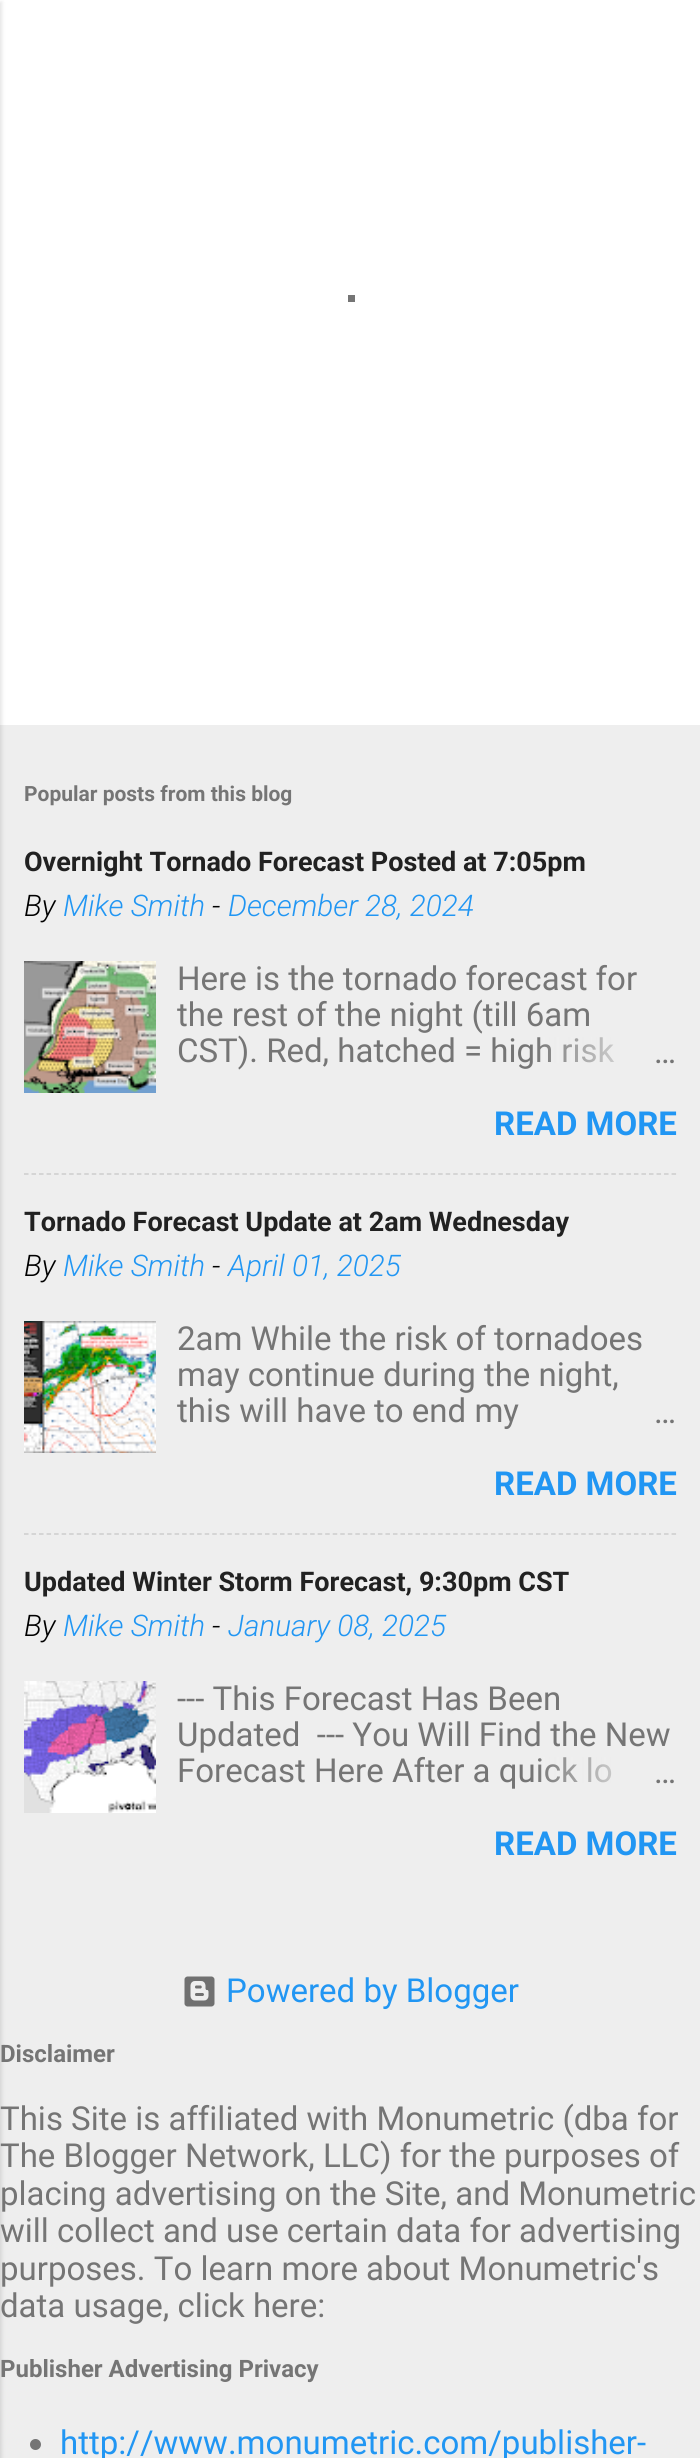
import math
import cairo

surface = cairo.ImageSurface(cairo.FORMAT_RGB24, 700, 2458)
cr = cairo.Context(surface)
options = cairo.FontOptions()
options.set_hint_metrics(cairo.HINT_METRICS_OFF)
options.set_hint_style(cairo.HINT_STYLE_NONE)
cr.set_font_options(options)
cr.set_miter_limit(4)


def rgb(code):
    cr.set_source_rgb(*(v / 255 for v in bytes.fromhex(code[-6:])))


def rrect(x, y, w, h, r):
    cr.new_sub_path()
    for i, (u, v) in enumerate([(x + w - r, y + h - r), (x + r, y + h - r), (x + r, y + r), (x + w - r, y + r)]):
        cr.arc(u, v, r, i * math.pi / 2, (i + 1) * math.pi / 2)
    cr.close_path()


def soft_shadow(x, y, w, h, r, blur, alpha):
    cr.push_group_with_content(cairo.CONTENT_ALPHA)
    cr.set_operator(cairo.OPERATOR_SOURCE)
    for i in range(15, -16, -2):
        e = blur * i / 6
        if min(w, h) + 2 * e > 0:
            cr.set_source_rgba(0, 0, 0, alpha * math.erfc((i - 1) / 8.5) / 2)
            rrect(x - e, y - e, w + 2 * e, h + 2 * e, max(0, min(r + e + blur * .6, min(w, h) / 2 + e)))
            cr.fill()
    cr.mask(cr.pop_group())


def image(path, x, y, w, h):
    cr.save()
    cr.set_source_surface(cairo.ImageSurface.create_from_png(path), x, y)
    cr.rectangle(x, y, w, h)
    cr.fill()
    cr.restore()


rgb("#eeeeee")
cr.paint()
rgb("#ffffff")
cr.rectangle(0, 0, 700, 725)
cr.fill()
rgb("#000000")
soft_shadow(-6, 2, 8, 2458, 0, 2, 0.1)
rgb("#757575")
cr.rectangle(348, 295, 7, 7)
cr.fill()
image("img/1.png", 24, 961, 132, 132)
cr.new_path()
cr.move_to(24, 1174)
cr.line_to(676.5, 1174)
rgb("#cccccc")
cr.set_line_width(1.5)
cr.set_dash([4.5, 3.03])
cr.stroke()
image("img/2.png", 24, 1321, 132, 132)
cr.new_path()
cr.move_to(24, 1534)
cr.line_to(676.5, 1534)
cr.stroke()
image("img/3.png", 24, 1681, 132, 132)
image("img/4.png", 184, 1976, 31, 31)
rgb("#757575")
cr.arc(35.5, 2444.5, 5.5, 0, 2 * math.pi)
cr.fill()
cr.select_font_face("Roboto", cairo.FONT_SLANT_NORMAL, cairo.FONT_WEIGHT_BOLD)
cr.set_font_size(21)
cr.move_to(24, 801)
cr.show_text("Popular posts from this blog")
cr.set_font_size(27)
rgb("#212121")
cr.move_to(24, 871)
cr.show_text("Overnight Tornado Forecast Posted at 7:05pm")
cr.select_font_face("Roboto Light", cairo.FONT_SLANT_ITALIC)
cr.set_font_size(29.75)
rgb("#000000")
cr.move_to(24, 916)
cr.show_text("By")
rgb("#2196f3")
cr.move_to(63, 916)
cr.show_text("Mike Smith")
rgb("#000000")
cr.move_to(212, 916)
cr.show_text("-")
rgb("#2196f3")
cr.move_to(228, 916)
cr.show_text("December 28, 2024")
cr.select_font_face("Roboto")
cr.set_font_size(33)
rgb("#757575")
for x, y, s in [
    (177, 990, "Here is the tornado forecast for"),
    (177, 1026, "the rest of the night (till 6am"),
    (177, 1062, "CST). Red, hatched = high risk"),
]:
    cr.move_to(x, y)
    cr.show_text(s)
gradient = cairo.LinearGradient(677, 1052, 533, 1052)
gradient.add_color_stop_rgba(0, 0.933, 0.933, 0.933, 1)
gradient.add_color_stop_rgba(0.2, 0.933, 0.933, 0.933, 1)
gradient.add_color_stop_rgba(1, 0.933, 0.933, 0.933, 0)
cr.set_source(gradient)
cr.rectangle(537, 1037, 78, 26)
cr.fill()
rgb("#757575")
cr.move_to(654, 1063)
cr.show_text("…")
cr.select_font_face("Roboto", cairo.FONT_SLANT_NORMAL, cairo.FONT_WEIGHT_BOLD)
rgb("#2196f3")
cr.move_to(494, 1135)
cr.show_text("READ MORE")
cr.set_font_size(27)
rgb("#212121")
cr.move_to(24, 1231)
cr.show_text("Tornado Forecast Update at 2am Wednesday")
cr.select_font_face("Roboto Light", cairo.FONT_SLANT_ITALIC)
cr.set_font_size(29.75)
rgb("#000000")
cr.move_to(24, 1276)
cr.show_text("By")
rgb("#2196f3")
cr.move_to(63, 1276)
cr.show_text("Mike Smith")
rgb("#000000")
cr.move_to(212, 1276)
cr.show_text("-")
rgb("#2196f3")
cr.move_to(228, 1276)
cr.show_text("April 01, 2025")
cr.select_font_face("Roboto")
cr.set_font_size(33)
rgb("#757575")
for x, y, s in [
    (177, 1350, "2am While the risk of tornadoes"),
    (177, 1386, "may continue during the night,"),
    (177, 1422, "this will have to end my"),
    (654, 1423, "…"),
]:
    cr.move_to(x, y)
    cr.show_text(s)
cr.select_font_face("Roboto", cairo.FONT_SLANT_NORMAL, cairo.FONT_WEIGHT_BOLD)
rgb("#2196f3")
cr.move_to(494, 1495)
cr.show_text("READ MORE")
cr.set_font_size(27)
rgb("#212121")
cr.move_to(24, 1591)
cr.show_text("Updated Winter Storm Forecast, 9:30pm CST")
cr.select_font_face("Roboto Light", cairo.FONT_SLANT_ITALIC)
cr.set_font_size(29.75)
rgb("#000000")
cr.move_to(24, 1636)
cr.show_text("By")
rgb("#2196f3")
cr.move_to(63, 1636)
cr.show_text("Mike Smith")
rgb("#000000")
cr.move_to(212, 1636)
cr.show_text("-")
rgb("#2196f3")
cr.move_to(228, 1636)
cr.show_text("January 08, 2025")
cr.select_font_face("Roboto")
cr.set_font_size(33)
rgb("#757575")
for x, y, s in [
    (177, 1710, "--- This Forecast Has Been"),
    (177, 1746, "Updated  --- You Will Find the New"),
    (177, 1782, "Forecast Here After a quick lo"),
]:
    cr.move_to(x, y)
    cr.show_text(s)
gradient = cairo.LinearGradient(677, 1772, 533, 1772)
gradient.add_color_stop_rgba(0, 0.933, 0.933, 0.933, 1)
gradient.add_color_stop_rgba(0.2, 0.933, 0.933, 0.933, 1)
gradient.add_color_stop_rgba(1, 0.933, 0.933, 0.933, 0)
cr.set_source(gradient)
cr.rectangle(538, 1757, 74, 26)
cr.fill()
rgb("#757575")
cr.move_to(654, 1783)
cr.show_text("…")
cr.select_font_face("Roboto", cairo.FONT_SLANT_NORMAL, cairo.FONT_WEIGHT_BOLD)
rgb("#2196f3")
cr.move_to(494, 1855)
cr.show_text("READ MORE")
cr.select_font_face("Roboto")
cr.move_to(226, 2002)
cr.show_text("Powered by Blogger")
cr.select_font_face("Roboto", cairo.FONT_SLANT_NORMAL, cairo.FONT_WEIGHT_BOLD)
cr.set_font_size(24)
rgb("#757575")
cr.move_to(0, 2062)
cr.show_text("Disclaimer")
cr.select_font_face("Roboto")
cr.set_font_size(33)
for x, y, s in [
    (0, 2130, "This Site is affiliated with Monumetric (dba for"),
    (0, 2167, "The Blogger Network, LLC) for the purposes of"),
    (0, 2205, "placing advertising on the Site, and Monumetric"),
    (0, 2242, "will collect and use certain data for advertising"),
    (0, 2280, "purposes. To learn more about Monumetric's"),
    (0, 2317, "data usage, click here:"),
]:
    cr.move_to(x, y)
    cr.show_text(s)
cr.select_font_face("Roboto", cairo.FONT_SLANT_NORMAL, cairo.FONT_WEIGHT_BOLD)
cr.set_font_size(24)
cr.move_to(0, 2377)
cr.show_text("Publisher Advertising Privacy")
cr.select_font_face("Roboto")
cr.set_font_size(33)
rgb("#2196f3")
cr.move_to(60, 2454)
cr.show_text("http://www.monumetric.com/publisher-")
surface.write_to_png("page.png")
